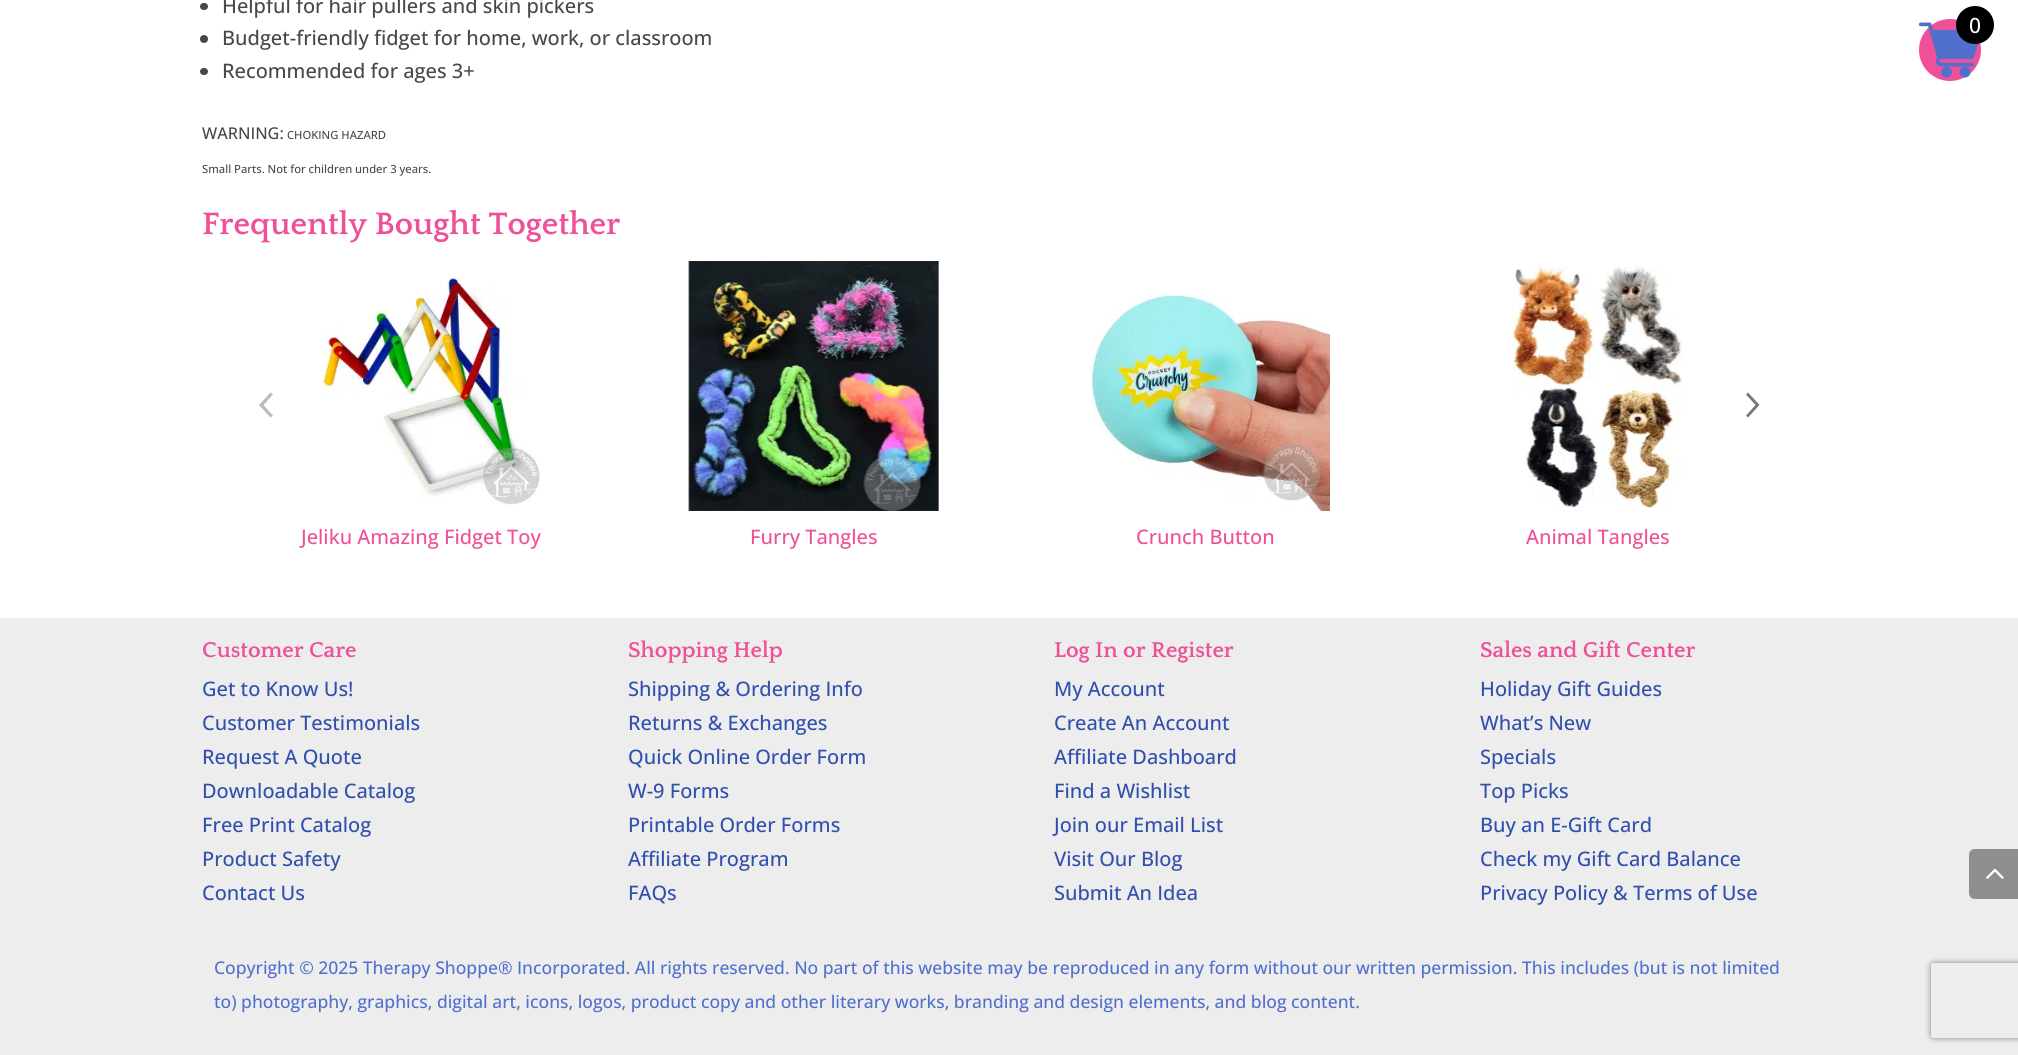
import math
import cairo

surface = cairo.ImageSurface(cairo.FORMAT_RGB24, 2018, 1055)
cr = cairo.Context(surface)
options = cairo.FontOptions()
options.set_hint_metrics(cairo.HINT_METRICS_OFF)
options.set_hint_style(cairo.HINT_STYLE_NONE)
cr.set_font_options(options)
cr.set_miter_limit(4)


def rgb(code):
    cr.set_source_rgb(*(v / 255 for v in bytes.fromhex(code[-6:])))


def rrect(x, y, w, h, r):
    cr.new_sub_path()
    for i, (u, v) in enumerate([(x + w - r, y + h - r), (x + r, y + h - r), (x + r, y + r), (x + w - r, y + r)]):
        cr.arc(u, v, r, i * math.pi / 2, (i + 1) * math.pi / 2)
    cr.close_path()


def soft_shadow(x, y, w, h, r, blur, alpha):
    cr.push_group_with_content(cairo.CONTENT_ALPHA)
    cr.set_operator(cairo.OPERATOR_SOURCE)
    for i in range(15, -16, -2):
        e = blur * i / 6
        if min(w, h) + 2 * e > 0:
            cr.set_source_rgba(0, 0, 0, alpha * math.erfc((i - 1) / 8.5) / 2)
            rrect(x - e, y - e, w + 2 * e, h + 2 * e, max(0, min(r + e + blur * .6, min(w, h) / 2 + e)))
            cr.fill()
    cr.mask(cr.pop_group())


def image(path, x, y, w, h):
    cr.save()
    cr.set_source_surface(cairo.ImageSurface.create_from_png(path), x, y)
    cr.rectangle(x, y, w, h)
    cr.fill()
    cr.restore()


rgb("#ffffff")
cr.paint()
rgb("#48484a")
rrect(200, 3, 8, 7, 3.5)
cr.fill()
cr.arc(204, 39, 4, 0, 2 * math.pi)
cr.fill()
rrect(200, 68, 8, 7, 3.5)
cr.fill()
rgb("#bdbcbc")
cr.set_fill_rule(cairo.FILL_RULE_EVEN_ODD)
cr.new_path()
cr.move_to(270.5, 417.5)
cr.line_to(259, 405)
cr.line_to(270.5, 392.5)
cr.line_to(273, 394.5)
cr.line_to(263.5, 405)
cr.line_to(273, 415.5)
cr.close_path()
cr.fill()
rgb("#7a7878")
cr.new_path()
cr.move_to(1748, 392.5)
cr.line_to(1759.5, 405)
cr.line_to(1748, 417.5)
cr.line_to(1746, 415.5)
cr.line_to(1755.5, 405)
cr.line_to(1746, 394.5)
cr.close_path()
cr.fill()
image("img/1.png", 322, 274, 218, 231)
image("img/2.png", 688, 261, 251, 250)
image("img/3.png", 1090, 294, 240, 217)
image("img/4.png", 1512, 264, 173, 244)
rgb("#ededee")
cr.rectangle(0, 618, 2018, 437)
cr.fill()
rgb("#ef5097")
cr.arc(1950, 50, 31, 0, 2 * math.pi)
cr.fill()
image("img/5.png", 1919, 22, 59, 56)
rgb("#000000")
cr.arc(1975, 25, 19, 0, 2 * math.pi)
cr.fill()
rgb("#8e8e8f")
cr.new_path()
cr.move_to(1975, 849)
cr.line_to(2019, 849)
cr.line_to(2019, 899)
cr.line_to(1975, 899)
cr.curve_to(1971.5, 899, 1969, 896.5, 1969, 893)
cr.line_to(1969, 855)
cr.curve_to(1969, 851.5, 1971.5, 849, 1975, 849)
cr.close_path()
cr.fill()
image("img/6.png", 1986, 869, 18, 10)
cr.save()
cr.new_path()
cr.move_to(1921, 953)
cr.line_to(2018, 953)
cr.line_to(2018, 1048)
cr.line_to(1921, 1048)
cr.close_path()
cr.move_to(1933.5, 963)
cr.line_to(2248.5, 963)
cr.curve_to(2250, 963, 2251, 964, 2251, 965.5)
cr.line_to(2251, 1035.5)
cr.curve_to(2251, 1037, 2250, 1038, 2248.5, 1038)
cr.line_to(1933.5, 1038)
cr.curve_to(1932, 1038, 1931, 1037, 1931, 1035.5)
cr.line_to(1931, 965.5)
cr.curve_to(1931, 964, 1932, 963, 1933.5, 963)
cr.close_path()
cr.clip()
rgb("#808080")
soft_shadow(1931, 963, 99, 75, 2.5, 3, 1)
cr.restore()
cr.select_font_face("Open Sans Medium")
cr.set_font_size(20)
rgb("#48484a")
for x, y, s in [
    (222, 13, "Helpful for hair pullers and skin pickers"),
    (222, 45, "Budget-friendly fidget for home, work, or classroom"),
    (222, 78, "Recommended for ages 3+"),
]:
    cr.move_to(x, y)
    cr.show_text(s)
cr.set_font_size(16.25)
cr.move_to(202, 139)
cr.show_text("WARNING:")
cr.set_font_size(11.25)
cr.move_to(287, 139)
cr.show_text("CHOKING HAZARD")
cr.move_to(202, 173)
cr.show_text("Small Parts. Not for children under 3 years.")
cr.select_font_face("Quattrocento", cairo.FONT_SLANT_NORMAL, cairo.FONT_WEIGHT_BOLD)
cr.set_font_size(32.5)
rgb("#ef5097")
cr.move_to(202, 234)
cr.show_text("Frequently Bought Together")
cr.select_font_face("Open Sans Medium")
cr.set_font_size(20)
for x, y, s in [
    (301, 544, "Jeliku Amazing Fidget Toy"),
    (750, 544, "Furry Tangles"),
    (1136, 544, "Crunch Button"),
    (1526, 544, "Animal Tangles"),
]:
    cr.move_to(x, y)
    cr.show_text(s)
cr.select_font_face("Quattrocento", cairo.FONT_SLANT_NORMAL, cairo.FONT_WEIGHT_BOLD)
cr.set_font_size(22.5)
cr.move_to(202, 657)
cr.show_text("Customer Care")
cr.select_font_face("Open Sans Medium")
cr.set_font_size(20)
rgb("#3150ad")
for x, y, s in [
    (202, 696, "Get to Know Us!"),
    (202, 730, "Customer Testimonials"),
    (202, 764, "Request A Quote"),
    (202, 798, "Downloadable Catalog"),
    (202, 832, "Free Print Catalog"),
    (202, 866, "Product Safety"),
    (202, 900, "Contact Us"),
]:
    cr.move_to(x, y)
    cr.show_text(s)
cr.select_font_face("Quattrocento", cairo.FONT_SLANT_NORMAL, cairo.FONT_WEIGHT_BOLD)
cr.set_font_size(22.5)
rgb("#ef5097")
cr.move_to(628, 657)
cr.show_text("Shopping Help")
cr.select_font_face("Open Sans Medium")
cr.set_font_size(20)
rgb("#3150ad")
for x, y, s in [
    (628, 696, "Shipping & Ordering Info"),
    (628, 730, "Returns & Exchanges"),
    (628, 764, "Quick Online Order Form"),
    (628, 798, "W-9 Forms"),
    (628, 832, "Printable Order Forms"),
    (628, 866, "Affiliate Program"),
    (628, 900, "FAQs"),
]:
    cr.move_to(x, y)
    cr.show_text(s)
cr.select_font_face("Quattrocento", cairo.FONT_SLANT_NORMAL, cairo.FONT_WEIGHT_BOLD)
cr.set_font_size(22.5)
rgb("#ef5097")
cr.move_to(1054, 657)
cr.show_text("Log In or Register")
cr.select_font_face("Open Sans Medium")
cr.set_font_size(20)
rgb("#3150ad")
for x, y, s in [
    (1054, 696, "My Account"),
    (1054, 730, "Create An Account"),
    (1054, 764, "Affiliate Dashboard"),
    (1054, 798, "Find a Wishlist"),
    (1054, 832, "Join our Email List"),
    (1054, 866, "Visit Our Blog"),
    (1054, 900, "Submit An Idea"),
]:
    cr.move_to(x, y)
    cr.show_text(s)
cr.select_font_face("Quattrocento", cairo.FONT_SLANT_NORMAL, cairo.FONT_WEIGHT_BOLD)
cr.set_font_size(22.5)
rgb("#ef5097")
cr.move_to(1480, 657)
cr.show_text("Sales and Gift Center")
cr.select_font_face("Open Sans Medium")
cr.set_font_size(20)
rgb("#3150ad")
for x, y, s in [
    (1480, 696, "Holiday Gift Guides"),
    (1480, 730, "What’s New"),
    (1480, 764, "Specials"),
    (1480, 798, "Top Picks"),
    (1480, 832, "Buy an E-Gift Card"),
    (1480, 866, "Check my Gift Card Balance"),
    (1480, 900, "Privacy Policy & Terms of Use"),
]:
    cr.move_to(x, y)
    cr.show_text(s)
cr.set_font_size(17.5)
rgb("#5170ce")
cr.move_to(214, 974)
cr.show_text("Copyright © 2025 Therapy Shoppe® Incorporated. All rights reserved. No part of this website may be reproduced in any form without our written permission. This includes (but is not limited")
cr.move_to(214, 1008)
cr.show_text("to) photography, graphics, digital art, icons, logos, product copy and other literary works, branding and design elements, and blog content.")
cr.set_font_size(21)
rgb("#ffffff")
cr.move_to(1969, 33)
cr.show_text("0")
surface.write_to_png("page.png")
